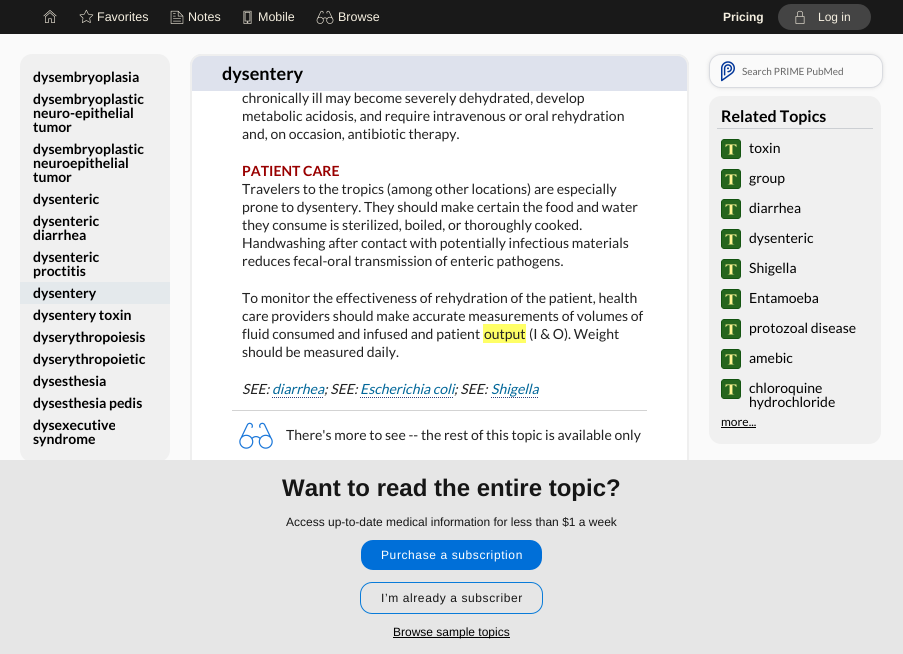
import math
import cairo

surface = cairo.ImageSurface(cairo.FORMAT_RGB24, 903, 654)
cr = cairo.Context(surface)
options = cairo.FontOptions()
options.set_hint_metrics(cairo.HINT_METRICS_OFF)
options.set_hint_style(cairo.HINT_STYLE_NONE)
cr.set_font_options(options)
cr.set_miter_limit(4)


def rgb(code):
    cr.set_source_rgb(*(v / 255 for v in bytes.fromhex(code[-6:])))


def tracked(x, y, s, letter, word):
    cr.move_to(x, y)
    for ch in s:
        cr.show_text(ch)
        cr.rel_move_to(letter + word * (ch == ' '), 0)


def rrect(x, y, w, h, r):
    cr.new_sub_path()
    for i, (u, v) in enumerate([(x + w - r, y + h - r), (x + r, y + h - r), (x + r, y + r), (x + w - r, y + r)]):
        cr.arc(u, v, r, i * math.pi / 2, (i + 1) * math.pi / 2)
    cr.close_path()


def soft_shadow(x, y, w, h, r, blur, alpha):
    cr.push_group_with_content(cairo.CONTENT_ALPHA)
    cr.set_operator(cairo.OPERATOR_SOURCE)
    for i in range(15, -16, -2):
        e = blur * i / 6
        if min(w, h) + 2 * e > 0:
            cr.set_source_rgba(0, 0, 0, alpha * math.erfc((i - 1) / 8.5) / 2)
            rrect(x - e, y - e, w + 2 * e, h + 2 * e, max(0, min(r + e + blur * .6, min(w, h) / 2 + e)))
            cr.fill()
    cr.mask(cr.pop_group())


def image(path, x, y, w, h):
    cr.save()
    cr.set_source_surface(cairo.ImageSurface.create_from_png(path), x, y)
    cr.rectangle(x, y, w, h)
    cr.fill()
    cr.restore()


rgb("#fafafa")
cr.paint()
rgb("#ffffff")
cr.rectangle(192, 91, 495, 369)
cr.fill()
rgb("#efefef")
cr.set_fill_rule(cairo.FILL_RULE_EVEN_ODD)
cr.new_path()
cr.move_to(190, -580)
cr.line_to(689, -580)
cr.line_to(689, 473)
cr.curve_to(689, 484, 680, 493, 669, 493)
cr.line_to(210, 493)
cr.curve_to(199, 493, 190, 484, 190, 473)
cr.close_path()
cr.move_to(192, -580)
cr.line_to(687, -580)
cr.line_to(687, 473)
cr.curve_to(687, 483, 679, 491, 669, 491)
cr.line_to(210, 491)
cr.curve_to(200, 491, 192, 483, 192, 473)
cr.close_path()
cr.fill()
rgb("#191919")
cr.rectangle(0, 0, 903, 34)
cr.fill()
image("img/1.png", 43, 10, 14, 13)
image("img/2.png", 79, 9, 15, 14)
image("img/3.png", 170, 10, 14, 14)
image("img/4.png", 243, 10, 9, 14)
image("img/5.png", 316, 10, 18, 14)
rgb("#444444")
rrect(778, 4, 93, 26, 13)
cr.fill()
image("img/6.png", 795, 10, 10, 14)
rgb("#fafafa")
cr.rectangle(190, 34, 499, 48)
cr.fill()
rgb("#f0f0f0")
rrect(20, 54, 150, 408, 12)
cr.fill()
rgb("#e4e9ec")
cr.rectangle(20, 282, 150, 22)
cr.fill()
rgb("#dee2ed")
cr.new_path()
cr.move_to(202, 54)
cr.line_to(677, 54)
cr.curve_to(683.5, 54, 689, 59.5, 689, 66)
cr.line_to(689, 91)
cr.line_to(190, 91)
cr.line_to(190, 66)
cr.curve_to(190, 59.5, 195.5, 54, 202, 54)
cr.close_path()
cr.fill()
rgb("#efefef")
cr.new_path()
cr.move_to(202, 54)
cr.line_to(677, 54)
cr.curve_to(684, 54, 689, 59, 689, 66)
cr.line_to(689, 91)
cr.line_to(190, 91)
cr.line_to(190, 66)
cr.curve_to(190, 59, 195, 54, 202, 54)
cr.close_path()
cr.move_to(202, 56)
cr.line_to(677, 56)
cr.curve_to(683, 56, 687, 60, 687, 66)
cr.line_to(687, 91)
cr.line_to(192, 91)
cr.line_to(192, 66)
cr.curve_to(192, 60, 196, 56, 202, 56)
cr.close_path()
cr.fill()
rgb("#ffff66")
cr.rectangle(483, 324, 43, 19)
cr.fill()
cr.new_path()
cr.move_to(272, 397.5)
cr.line_to(324, 397.5)
rgb("#2d3e75")
cr.set_line_width(1)
cr.set_dash([1, 1])
cr.stroke()
cr.new_path()
cr.move_to(360, 397.5)
cr.line_to(454, 397.5)
cr.stroke()
cr.new_path()
cr.move_to(491, 397.5)
cr.line_to(538, 397.5)
cr.stroke()
rgb("#d3d3d3")
cr.rectangle(232, 410, 415, 1)
cr.fill()
image("img/7.png", 239, 422, 34, 27)
rgb("#dddddd")
soft_shadow(709, 54, 174, 34, 12, 2, 1)
rgb("#fafafa")
rrect(709.5, 54.5, 173, 33, 11.5)
cr.fill_preserve()
rgb("#d9dbe0")
cr.set_dash([])
cr.stroke()
image("img/8.png", 721, 61, 14, 21)
rgb("#f0f0f0")
rrect(709, 96, 172, 348, 12)
cr.fill()
rgb("#cccfd3")
cr.rectangle(717, 128, 156, 1)
cr.fill()
image("img/9.png", 721, 139, 20, 20)
image("img/9.png", 721, 169, 20, 20)
image("img/9.png", 721, 199, 20, 20)
image("img/9.png", 721, 229, 20, 20)
image("img/9.png", 721, 259, 20, 20)
image("img/9.png", 721, 289, 20, 20)
image("img/9.png", 721, 319, 20, 20)
image("img/9.png", 721, 349, 20, 20)
image("img/9.png", 721, 379, 20, 20)
rgb("#000000")
cr.rectangle(721, 427, 35, 1)
cr.fill()
rgb("#e6e6e6")
cr.rectangle(0, 460, 903, 194)
cr.fill()
rgb("#006fd8")
rrect(361, 540, 181, 30, 12)
cr.fill()
rrect(360.5, 582.5, 182, 31, 11.5)
rgb("#097bd9")
cr.stroke()
rgb("#000000")
cr.rectangle(393, 637, 117, 1)
cr.fill()
cr.select_font_face("Liberation Sans")
cr.set_font_size(12.5)
rgb("#f5efe0")
for x, y, s in [
    (97, 21, "Favorites"),
    (188, 21, "Notes"),
    (258, 21, "Mobile"),
    (338, 21, "Browse"),
]:
    cr.move_to(x, y)
    cr.show_text(s)
cr.select_font_face("Liberation Sans", cairo.FONT_SLANT_NORMAL, cairo.FONT_WEIGHT_BOLD)
cr.set_font_size(12)
cr.move_to(723, 21)
cr.show_text("Pricing")
cr.select_font_face("Liberation Sans")
cr.move_to(818, 21)
cr.show_text("Log in")
cr.select_font_face("Lato", cairo.FONT_SLANT_NORMAL, cairo.FONT_WEIGHT_BOLD)
cr.set_font_size(14)
rgb("#000000")
for x, y, s in [
    (33, 82, "dysembryoplasia"),
    (33, 104, "dysembryoplastic"),
    (33, 118, "neuro-epithelial"),
    (33, 132, "tumor"),
    (33, 154, "dysembryoplastic"),
    (33, 168, "neuroepithelial"),
    (33, 182, "tumor"),
    (33, 204, "dysenteric"),
    (33, 226, "dysenteric"),
    (33, 240, "diarrhea"),
    (33, 262, "dysenteric"),
    (33, 276, "proctitis"),
    (33, 298, "dysentery"),
    (33, 320, "dysentery toxin"),
    (33, 342, "dyserythropoiesis"),
    (33, 364, "dyserythropoietic"),
    (33, 386, "dysesthesia"),
    (33, 408, "dysesthesia pedis"),
    (33, 430, "dysexecutive"),
    (33, 444, "syndrome"),
]:
    cr.move_to(x, y)
    cr.show_text(s)
cr.set_font_size(18)
cr.move_to(222, 80)
cr.show_text("dysentery")
cr.select_font_face("Lato")
cr.set_font_size(14)
rgb("#222222")
for x, y, s in [
    (242, 103, "chronically ill may become severely dehydrated, develop"),
    (242, 121, "metabolic acidosis, and require intravenous or oral rehydration"),
    (242, 139, "and, on occasion, antibiotic therapy."),
]:
    cr.move_to(x, y)
    cr.show_text(s)
cr.select_font_face("Lato", cairo.FONT_SLANT_NORMAL, cairo.FONT_WEIGHT_BOLD)
rgb("#990000")
cr.move_to(242, 176)
cr.show_text("PATIENT CARE")
cr.select_font_face("Lato")
rgb("#222222")
for x, y, s in [
    (242, 194, "Travelers to the tropics (among other locations) are especially"),
    (242, 212, "prone to dysentery. They should make certain the food and water"),
    (242, 230, "they consume is sterilized, boiled, or thoroughly cooked."),
    (242, 248, "Handwashing after contact with potentially infectious materials"),
    (242, 266, "reduces fecal-oral transmission of enteric pathogens."),
    (242, 303, "To monitor the effectiveness of rehydration of the patient, health"),
    (242, 321, "care providers should make accurate measurements of volumes of"),
    (242, 339, "fluid consumed and infused and patient"),
    (484, 339, "output"),
    (529, 339, "(I & O). Weight"),
    (242, 357, "should be measured daily."),
]:
    cr.move_to(x, y)
    cr.show_text(s)
cr.select_font_face("Lato", cairo.FONT_SLANT_ITALIC)
cr.move_to(242, 394)
cr.show_text("SEE:")
rgb("#006699")
cr.move_to(272, 394)
cr.show_text("diarrhea")
rgb("#222222")
cr.move_to(324, 394)
cr.show_text("; SEE:")
rgb("#006699")
cr.move_to(360, 394)
cr.show_text("Escherichia coli")
rgb("#222222")
cr.move_to(454, 394)
cr.show_text("; SEE:")
rgb("#006699")
cr.move_to(491, 394)
cr.show_text("Shigella")
cr.select_font_face("Lato")
rgb("#222222")
cr.move_to(286, 440)
cr.show_text("There's more to see -- the rest of this topic is available only")
cr.set_font_size(10)
rgb("#666666")
cr.move_to(742, 75)
cr.show_text("Search PRIME PubMed")
cr.select_font_face("Lato", cairo.FONT_SLANT_NORMAL, cairo.FONT_WEIGHT_BOLD)
cr.set_font_size(16)
rgb("#000000")
cr.move_to(721, 122)
cr.show_text("Related Topics")
cr.select_font_face("Lato")
cr.set_font_size(14)
for x, y, s in [
    (749, 153, "toxin"),
    (749, 183, "group"),
    (749, 213, "diarrhea"),
    (749, 243, "dysenteric"),
    (749, 273, "Shigella"),
    (749, 303, "Entamoeba"),
    (749, 333, "protozoal disease"),
    (749, 363, "amebic"),
    (749, 393, "chloroquine"),
    (749, 407, "hydrochloride"),
]:
    cr.move_to(x, y)
    cr.show_text(s)
cr.set_font_size(12)
cr.move_to(721, 426)
cr.show_text("more...")
cr.select_font_face("Liberation Sans", cairo.FONT_SLANT_NORMAL, cairo.FONT_WEIGHT_BOLD)
cr.set_font_size(24)
rgb("#161616")
cr.move_to(282, 496)
cr.show_text("Want to read the entire topic?")
cr.select_font_face("Liberation Sans")
cr.set_font_size(12)
cr.move_to(286, 526)
cr.show_text("Access up-to-date medical information for less than $1 a week")
rgb("#ffffff")
tracked(381, 559, "Purchase a subscription", 0.6, 0)
rgb("#161616")
tracked(381, 602, "I’m already a subscriber", 0.6, 0)
rgb("#000000")
cr.move_to(393, 636)
cr.show_text("Browse sample topics")
surface.write_to_png("page.png")
